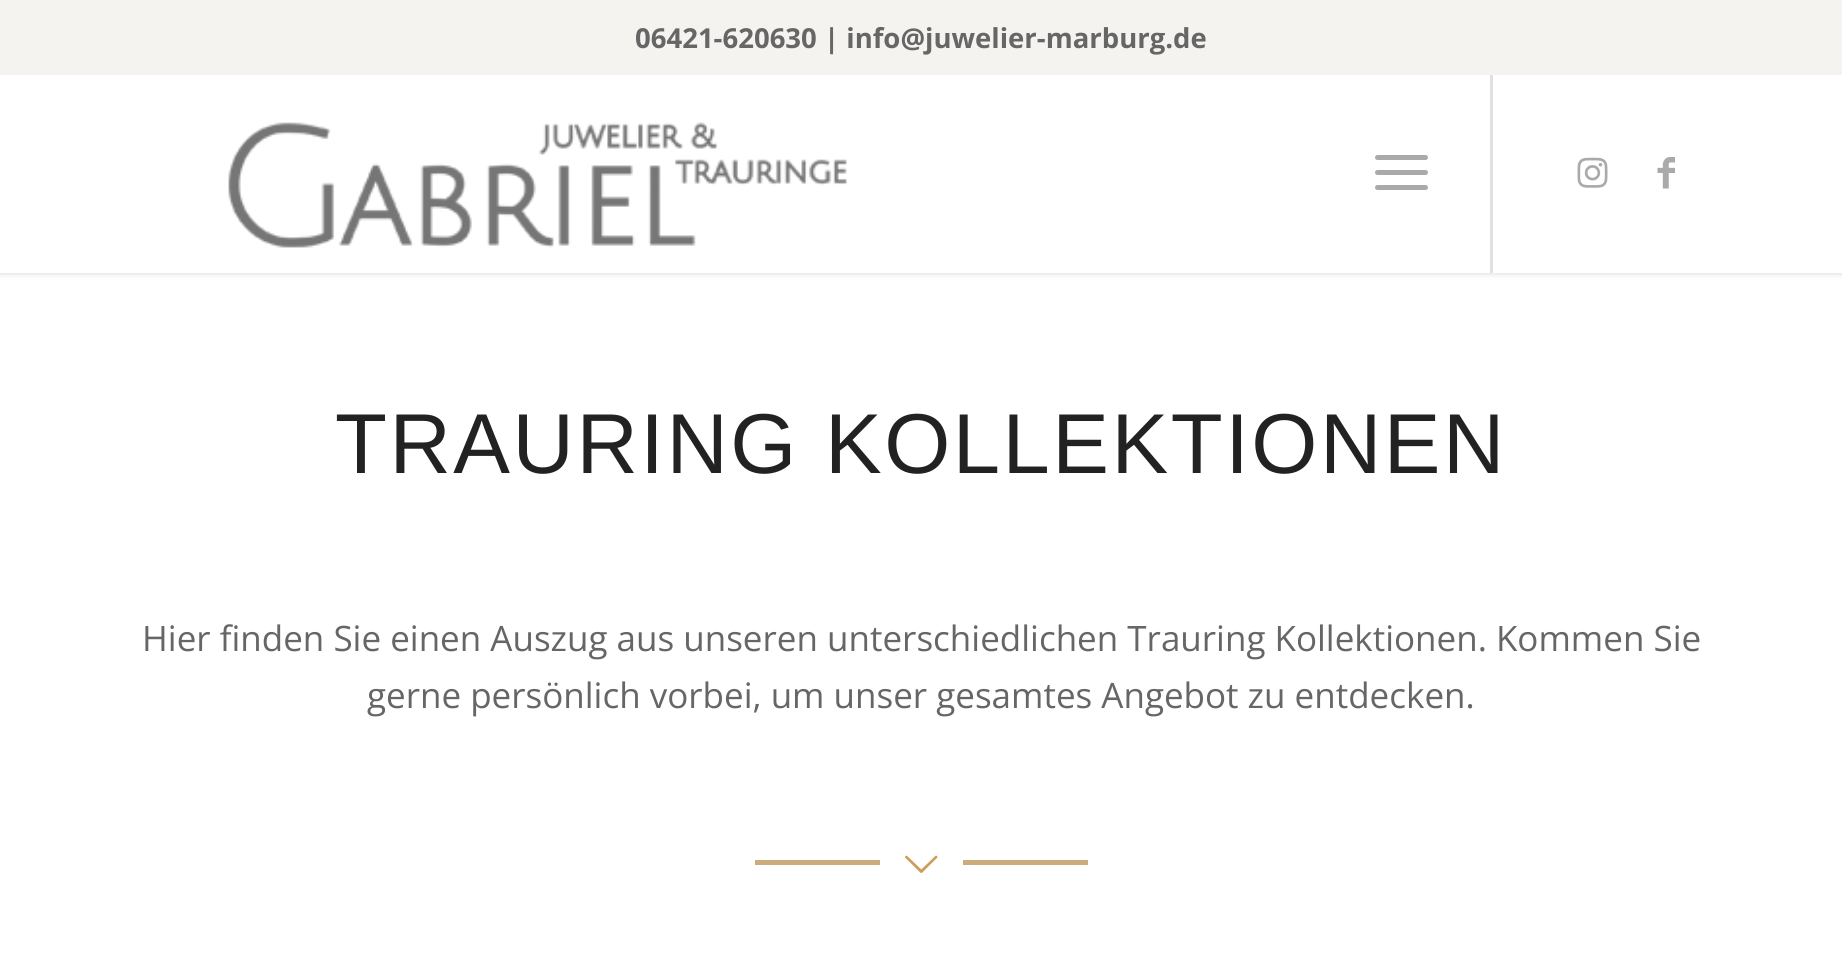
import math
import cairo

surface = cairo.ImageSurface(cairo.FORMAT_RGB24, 1842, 970)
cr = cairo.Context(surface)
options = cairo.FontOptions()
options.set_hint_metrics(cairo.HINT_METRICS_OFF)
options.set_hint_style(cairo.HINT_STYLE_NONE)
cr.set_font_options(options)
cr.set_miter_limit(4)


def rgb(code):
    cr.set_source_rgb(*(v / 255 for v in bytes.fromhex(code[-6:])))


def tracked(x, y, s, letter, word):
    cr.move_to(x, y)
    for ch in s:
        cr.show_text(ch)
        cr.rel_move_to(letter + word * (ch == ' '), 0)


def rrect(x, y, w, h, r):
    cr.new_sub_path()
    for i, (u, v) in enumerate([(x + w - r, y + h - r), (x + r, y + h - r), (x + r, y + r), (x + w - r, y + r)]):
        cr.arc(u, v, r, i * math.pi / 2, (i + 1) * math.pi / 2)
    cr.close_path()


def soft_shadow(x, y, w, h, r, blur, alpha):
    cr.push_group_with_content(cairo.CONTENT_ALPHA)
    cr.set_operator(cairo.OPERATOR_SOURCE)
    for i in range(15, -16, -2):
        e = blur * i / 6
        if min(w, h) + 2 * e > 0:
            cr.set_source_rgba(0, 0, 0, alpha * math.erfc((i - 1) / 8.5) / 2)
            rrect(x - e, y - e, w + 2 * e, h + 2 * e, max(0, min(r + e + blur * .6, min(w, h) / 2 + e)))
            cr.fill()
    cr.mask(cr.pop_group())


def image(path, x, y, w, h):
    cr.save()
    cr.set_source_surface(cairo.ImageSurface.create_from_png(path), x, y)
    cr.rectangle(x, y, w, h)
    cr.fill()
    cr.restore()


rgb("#ffffff")
cr.paint()
rgb("#000000")
soft_shadow(-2, -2, 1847, 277, 0, 2.5, 0.1)
for x, y, w, h, color in [
    (0, 75, 1842, 198, "#ffffff"),
    (1490, 73, 3, 200, "#e1e1e1"),
    (0, 0, 1842, 75, "#f5f3f0"),
]:
    rgb(color)
    cr.rectangle(x, y, w, h)
    cr.fill()
image("img/1.png", 228, 122, 619, 126)
rgb("#aaaaaa")
rrect(1375, 170, 53, 5, 2.5)
cr.fill()
rrect(1375, 155, 53, 5, 2.5)
cr.fill()
rrect(1375, 185, 53, 5, 2.5)
cr.fill()
image("img/2.png", 1577, 157, 31, 31)
image("img/3.png", 1657, 157, 18, 32)
rgb("#ccac7c")
cr.rectangle(755, 860, 125, 5)
cr.fill()
image("img/4.png", 905, 855, 33, 18)
cr.rectangle(963, 860, 125, 5)
cr.fill()
cr.select_font_face("Open Sans", cairo.FONT_SLANT_NORMAL, cairo.FONT_WEIGHT_BOLD)
cr.set_font_size(27.5)
rgb("#666666")
cr.move_to(635, 48)
cr.show_text("06421-620630 | info@juwelier-marburg.de")
cr.select_font_face("Liberation Sans")
cr.set_font_size(85)
rgb("#222222")
tracked(335, 473, "TRAURING KOLLEKTIONEN", 2.5, 0)
cr.select_font_face("Open Sans")
cr.set_font_size(35)
rgb("#666666")
cr.move_to(142, 651)
cr.show_text("Hier finden Sie einen Auszug aus unseren unterschiedlichen Trauring Kollektionen. Kommen Sie")
cr.move_to(367, 708)
cr.show_text("gerne persönlich vorbei, um unser gesamtes Angebot zu entdecken.")
surface.write_to_png("page.png")
